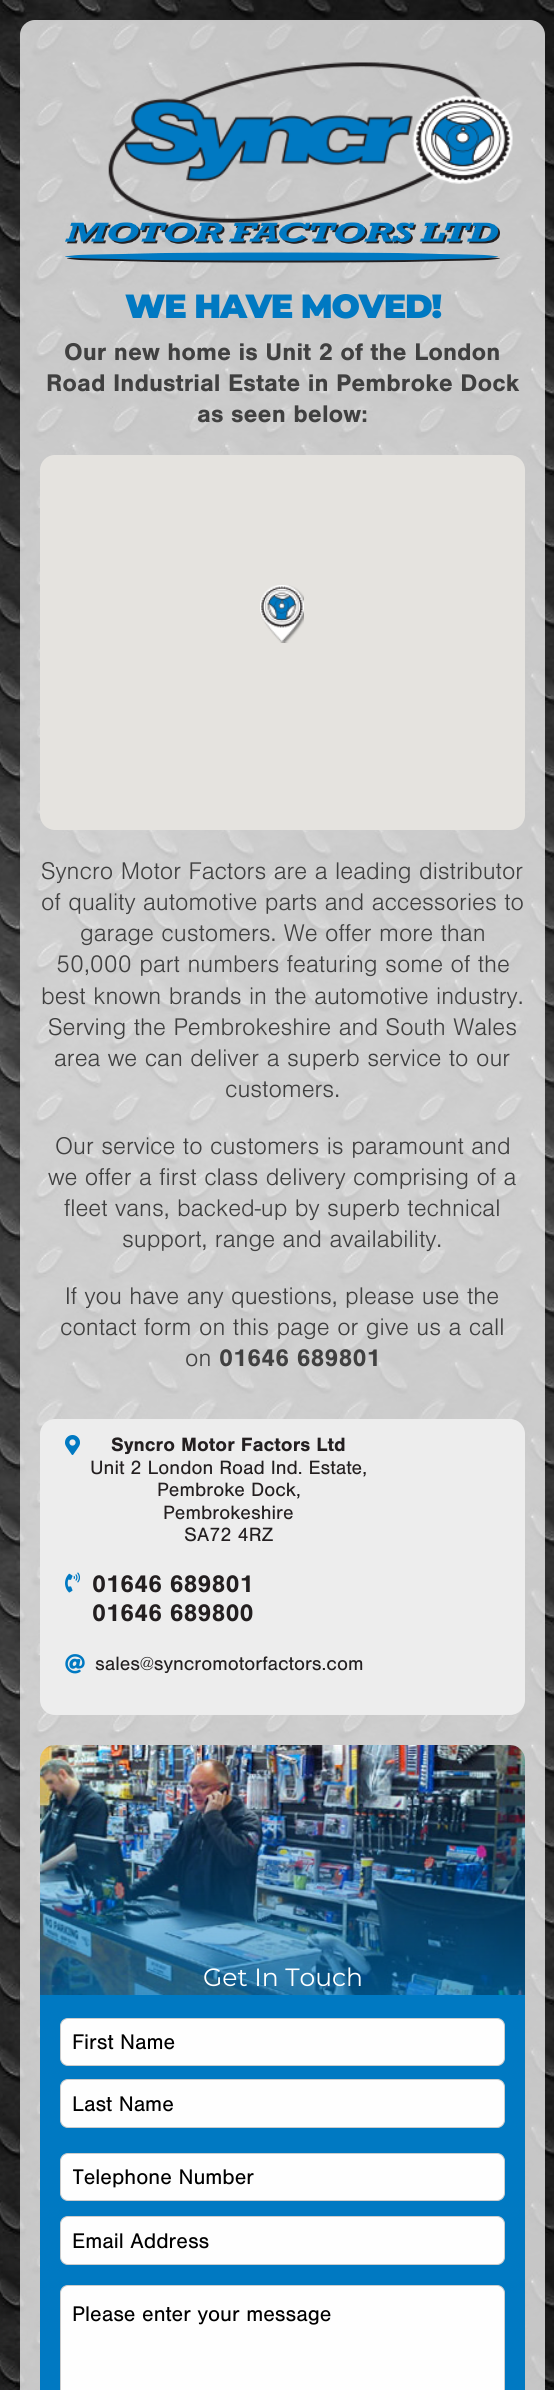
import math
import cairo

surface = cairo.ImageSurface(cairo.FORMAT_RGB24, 554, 2390)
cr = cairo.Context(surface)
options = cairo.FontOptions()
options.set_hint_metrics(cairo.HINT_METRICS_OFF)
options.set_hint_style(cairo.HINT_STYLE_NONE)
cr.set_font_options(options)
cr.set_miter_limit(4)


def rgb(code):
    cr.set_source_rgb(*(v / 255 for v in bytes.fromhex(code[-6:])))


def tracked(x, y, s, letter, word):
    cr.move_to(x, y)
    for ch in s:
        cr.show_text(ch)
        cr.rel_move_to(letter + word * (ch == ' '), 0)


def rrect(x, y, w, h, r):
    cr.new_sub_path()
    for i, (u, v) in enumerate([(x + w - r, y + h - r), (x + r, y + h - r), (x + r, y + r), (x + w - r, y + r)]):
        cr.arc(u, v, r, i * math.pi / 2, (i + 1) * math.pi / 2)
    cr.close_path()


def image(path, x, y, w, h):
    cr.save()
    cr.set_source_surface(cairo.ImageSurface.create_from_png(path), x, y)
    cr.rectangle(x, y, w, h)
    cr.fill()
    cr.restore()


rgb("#ffffff")
cr.paint()
image("img/1.png", 0, 0, 554, 2390)
image("img/2.png", 108, 62, 405, 161)
image("img/3.png", 65, 222, 435, 41)
rgb("#e5e3df")
rrect(40, 455, 485, 375, 15)
cr.fill()
image("img/4.png", 260, 585, 44, 58)
rgb("#ededed")
rrect(40, 1419, 485, 296, 15)
cr.fill()
image("img/5.png", 65, 1435, 15, 20)
image("img/6.png", 65, 1572, 15, 21)
image("img/7.png", 65, 1654, 20, 20)
image("img/8.png", 40, 1745, 485, 250)
gradient = cairo.LinearGradient(283, 1745, 283, 1995)
gradient.add_color_stop_rgba(0, 0, 0.475, 0.761, 0)
gradient.add_color_stop_rgba(1, 0, 0.475, 0.761, 0.65)
cr.set_source(gradient)
cr.rectangle(40, 1753, 485, 242)
cr.fill()
rgb("#0079c2")
cr.rectangle(40, 1995, 485, 395)
cr.fill()
rgb("#fefefe")
rrect(60.5, 2018.5, 444, 47, 7.5)
cr.fill_preserve()
rgb("#cccccc")
cr.set_line_width(1)
cr.stroke()
rgb("#fefefe")
rrect(60.5, 2079.5, 444, 48, 7.5)
cr.fill_preserve()
rgb("#cccccc")
cr.stroke()
rgb("#fefefe")
rrect(60.5, 2153.5, 444, 47, 7.5)
cr.fill_preserve()
rgb("#cccccc")
cr.stroke()
rgb("#fefefe")
rrect(60.5, 2216.5, 444, 48, 7.5)
cr.fill_preserve()
rgb("#cccccc")
cr.stroke()
rgb("#fefefe")
rrect(60.5, 2285.5, 444, 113, 7.5)
cr.fill_preserve()
rgb("#cccccc")
cr.stroke()
cr.select_font_face("Montserrat Black")
cr.set_font_size(33.5)
rgb("#0079c2")
tracked(125, 318, "WE HAVE MOVED!", -1.25, 0)
cr.select_font_face("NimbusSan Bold", cairo.FONT_SLANT_NORMAL, cairo.FONT_WEIGHT_BOLD)
cr.set_font_size(25)
rgb("#404040")
for x, y, s in [
    (64, 360, "Our new home is Unit 2 of the London"),
    (46, 391, "Road Industrial Estate in Pembroke Dock"),
    (197, 422, "as seen below:"),
]:
    cr.move_to(x, y)
    cr.show_text(s)
cr.select_font_face("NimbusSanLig")
for x, y, s in [
    (41, 879, "Syncro Motor Factors are a leading distributor"),
    (41, 910, "of quality automotive parts and accessories to"),
    (80, 941, "garage customers. We offer more than"),
    (56, 972, "50,000 part numbers featuring some of the"),
    (41, 1004, "best known brands in the automotive industry."),
    (48, 1035, "Serving the Pembrokeshire and South Wales"),
    (54, 1066, "area we can deliver a superb service to our"),
    (225, 1097, "customers."),
    (55, 1154, "Our service to customers is paramount and"),
    (48, 1185, "we offer a first class delivery comprising of a"),
    (64, 1216, "fleet vans, backed-up by superb technical"),
    (122, 1247, "support, range and availability."),
    (65, 1304, "If you have any questions, please use the"),
    (60, 1335, "contact form on this page or give us a call"),
    (185, 1366, "on"),
]:
    cr.move_to(x, y)
    cr.show_text(s)
cr.select_font_face("NimbusSan Bold", cairo.FONT_SLANT_NORMAL, cairo.FONT_WEIGHT_BOLD)
cr.move_to(219, 1366)
cr.show_text("01646 689801")
cr.set_font_size(20)
rgb("#231f20")
cr.move_to(111, 1451)
cr.show_text("Syncro Motor Factors Ltd")
cr.select_font_face("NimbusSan")
for x, y, s in [
    (90, 1474, "Unit 2 London Road Ind. Estate,"),
    (157, 1496, "Pembroke Dock,"),
    (163, 1519, "Pembrokeshire"),
    (184, 1541, "SA72 4RZ"),
]:
    cr.move_to(x, y)
    cr.show_text(s)
cr.select_font_face("NimbusSan Bold", cairo.FONT_SLANT_NORMAL, cairo.FONT_WEIGHT_BOLD)
cr.set_font_size(25)
cr.move_to(92, 1592)
cr.show_text("01646 689801")
cr.move_to(92, 1621)
cr.show_text("01646 689800")
cr.select_font_face("NimbusSan")
cr.set_font_size(20)
cr.move_to(95, 1670)
cr.show_text("sales@syncromotorfactors.com")
cr.select_font_face("Montserrat")
cr.set_font_size(25)
rgb("#ffffff")
cr.move_to(203, 1986)
cr.show_text("Get In Touch")
cr.select_font_face("NimbusSan")
cr.set_font_size(22)
rgb("#000000")
cr.move_to(72, 2049)
cr.show_text("First Name")
cr.move_to(72, 2111)
cr.show_text("Last Name")
cr.save()
cr.rectangle(73, 2164, 420, 25)
cr.clip()
cr.move_to(72, 2184)
cr.show_text("Telephone Number")
cr.restore()
cr.move_to(72, 2248)
cr.show_text("Email Address")
cr.move_to(72, 2321)
cr.show_text("Please enter your message")
surface.write_to_png("page.png")
